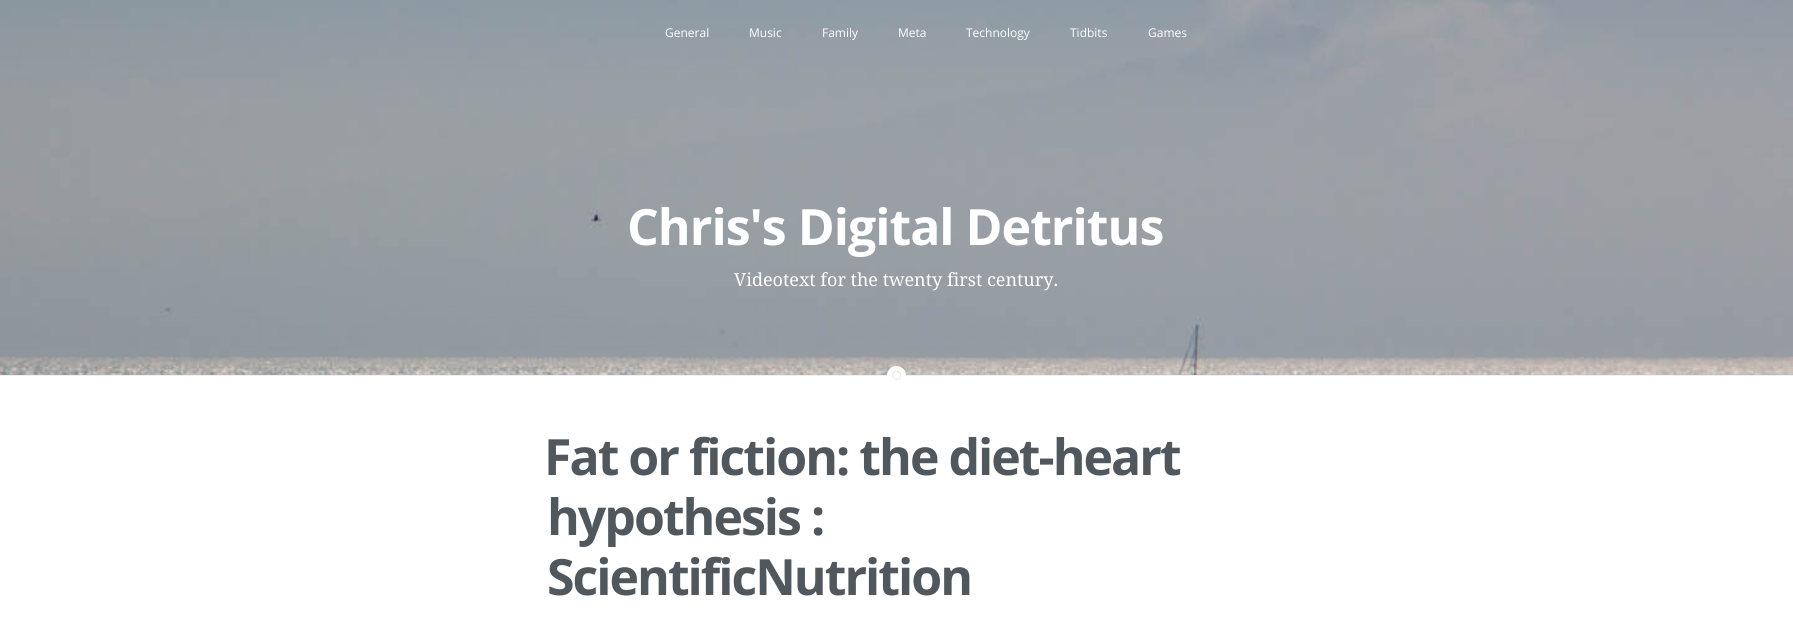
import math
import cairo

surface = cairo.ImageSurface(cairo.FORMAT_RGB24, 1793, 625)
cr = cairo.Context(surface)
options = cairo.FontOptions()
options.set_hint_metrics(cairo.HINT_METRICS_OFF)
options.set_hint_style(cairo.HINT_STYLE_NONE)
cr.set_font_options(options)
cr.set_miter_limit(4)


def rgb(code):
    cr.set_source_rgb(*(v / 255 for v in bytes.fromhex(code[-6:])))


def tracked(x, y, s, letter, word):
    cr.move_to(x, y)
    for ch in s:
        cr.show_text(ch)
        cr.rel_move_to(letter + word * (ch == ' '), 0)


def image(path, x, y, w, h):
    cr.save()
    cr.set_source_surface(cairo.ImageSurface.create_from_png(path), x, y)
    cr.rectangle(x, y, w, h)
    cr.fill()
    cr.restore()


rgb("#ffffff")
cr.paint()
image("img/1.png", 0, 0, 1793, 375)
rgb("#ebf2f6")
cr.rectangle(0, 375, 1793, 1)
cr.fill()
cr.arc(896.5, 375.5, 7, 0, 2 * math.pi)
rgb("#ffffff")
cr.set_line_width(5)
cr.stroke()
cr.arc(896.5, 375.5, 4, 0, 2 * math.pi)
cr.fill_preserve()
rgb("#e7eef2")
cr.set_line_width(1)
cr.stroke()
cr.select_font_face("Open Sans")
cr.set_font_size(12)
rgb("#ffffff")
for x, y, s in [
    (665, 37, "General"),
    (749, 37, "Music"),
    (822, 37, "Family"),
    (898, 37, "Meta"),
    (966, 37, "Technology"),
    (1070, 37, "Tidbits"),
    (1148, 37, "Games"),
]:
    cr.move_to(x, y)
    cr.show_text(s)
cr.select_font_face("Open Sans", cairo.FONT_SLANT_NORMAL, cairo.FONT_WEIGHT_BOLD)
cr.set_font_size(50)
tracked(627, 245, "Chris's Digital Detritus", -1, 0)
cr.select_font_face("Noto Serif")
cr.set_font_size(18)
cr.move_to(734, 286)
cr.show_text("Videotext for the twenty first century.")
cr.select_font_face("Open Sans", cairo.FONT_SLANT_NORMAL, cairo.FONT_WEIGHT_BOLD)
cr.set_font_size(50)
rgb("#50585d")
for x, y, s in [
    (544, 475, "Fat or fiction: the diet-heart"),
    (547, 535, "hypothesis :"),
    (547, 595, "ScientificNutrition"),
]:
    tracked(x, y, s, -2, 0)
surface.write_to_png("page.png")
